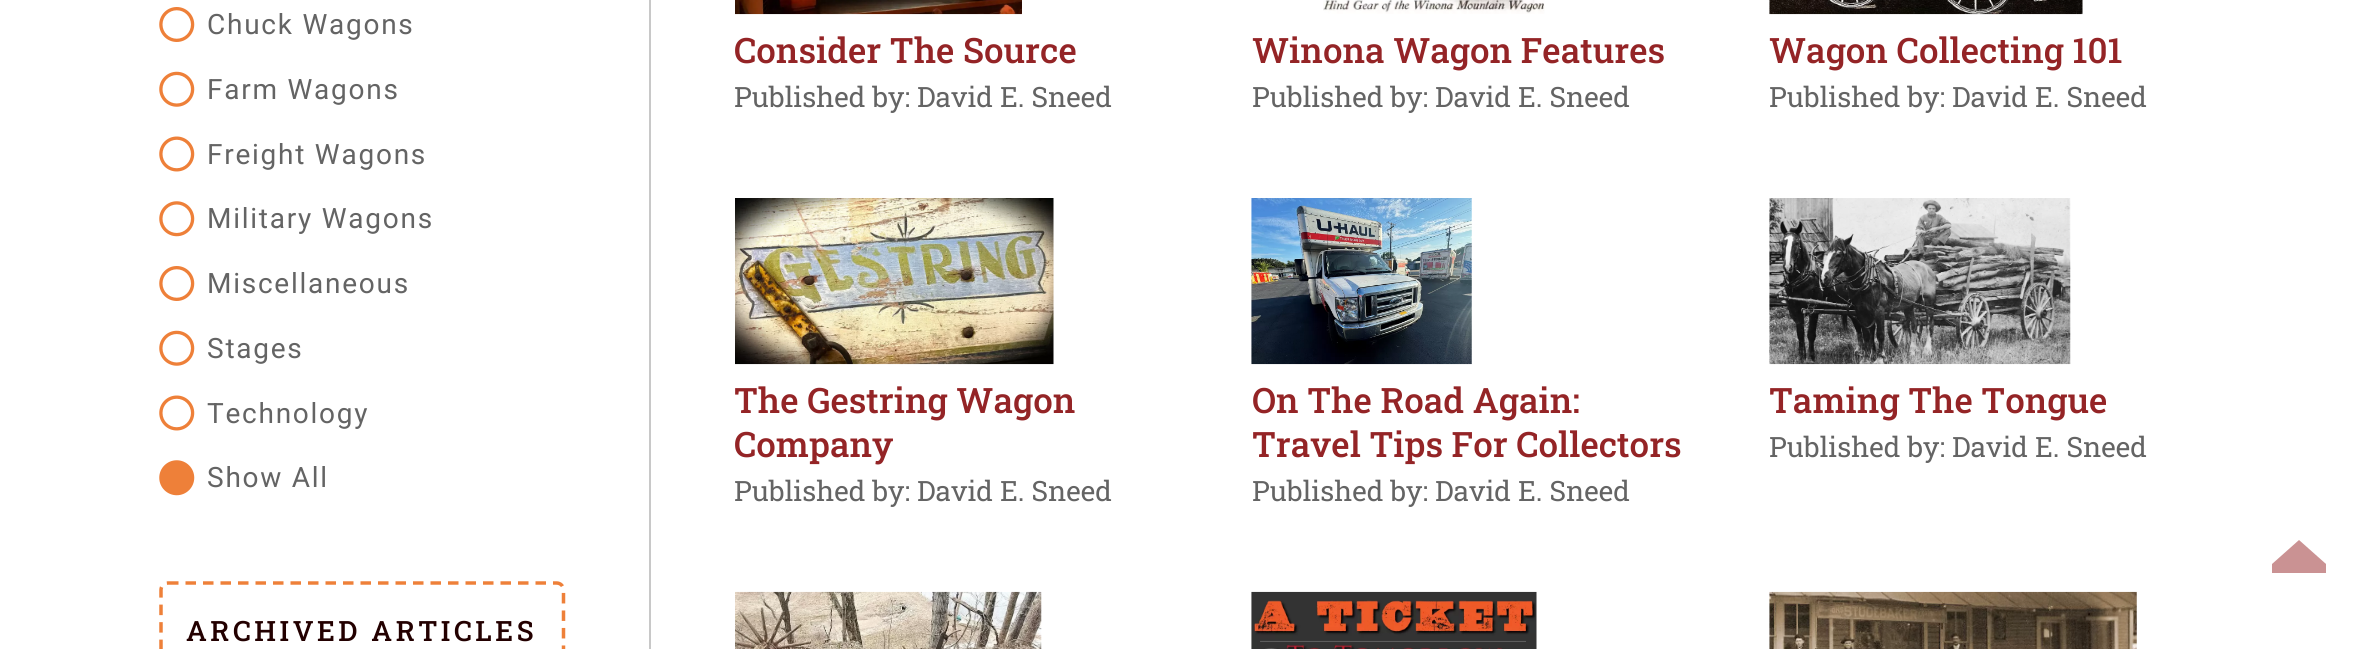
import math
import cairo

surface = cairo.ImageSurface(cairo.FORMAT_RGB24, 2360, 649)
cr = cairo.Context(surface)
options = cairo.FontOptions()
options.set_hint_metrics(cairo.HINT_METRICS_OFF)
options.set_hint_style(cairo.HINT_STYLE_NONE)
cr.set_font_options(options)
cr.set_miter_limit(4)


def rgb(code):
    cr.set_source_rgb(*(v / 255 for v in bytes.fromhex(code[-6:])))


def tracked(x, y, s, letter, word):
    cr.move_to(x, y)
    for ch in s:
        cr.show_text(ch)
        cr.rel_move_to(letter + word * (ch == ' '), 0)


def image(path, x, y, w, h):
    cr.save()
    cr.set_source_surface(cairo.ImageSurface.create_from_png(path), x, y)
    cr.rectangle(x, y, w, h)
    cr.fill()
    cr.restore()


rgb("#ffffff")
cr.paint()
image("img/1.png", 159, 7, 36, 35)
image("img/2.png", 159, 71, 36, 36)
image("img/3.png", 159, 136, 36, 36)
image("img/4.png", 159, 201, 36, 36)
image("img/1.png", 159, 266, 36, 35)
image("img/2.png", 159, 330, 36, 36)
image("img/3.png", 159, 395, 36, 36)
image("img/5.png", 159, 460, 36, 36)
cr.new_path()
cr.move_to(168, 583)
cr.line_to(556.5, 583)
cr.curve_to(560.5, 583, 563.5, 586, 563.5, 590)
cr.line_to(563.5, 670)
cr.curve_to(563.5, 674, 560.5, 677, 556.5, 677)
cr.line_to(168, 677)
cr.curve_to(164, 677, 161, 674, 161, 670)
cr.line_to(161, 590)
cr.curve_to(161, 586, 164, 583, 168, 583)
cr.close_path()
rgb("#ee8039")
cr.set_line_width(3.5)
cr.set_dash([10.5, 7])
cr.stroke()
rgb("#c8c8c8")
cr.rectangle(649, 0, 2, 649)
cr.fill()
image("img/6.png", 735, 0, 287, 15)
image("img/7.png", 1323, 0, 222, 14)
image("img/8.png", 1769, 0, 314, 15)
image("img/9.png", 735, 198, 319, 167)
image("img/10.png", 1251, 198, 221, 167)
image("img/11.png", 1769, 198, 302, 167)
image("img/12.png", 735, 591, 307, 58)
image("img/13.png", 1251, 591, 286, 58)
image("img/14.png", 1769, 591, 368, 58)
rgb("#ca9293")
cr.new_path()
cr.move_to(2272, 564)
cr.line_to(2299, 540)
cr.line_to(2326, 564)
cr.line_to(2326, 573)
cr.line_to(2272, 573)
cr.close_path()
cr.fill()
cr.select_font_face("Roboto")
cr.set_font_size(28)
rgb("#646464")
for x, y, s in [
    (207, 34, "Chuck Wagons"),
    (207, 99, "Farm Wagons"),
    (207, 164, "Freight Wagons"),
    (207, 228, "Military Wagons"),
    (207, 293, "Miscellaneous"),
    (207, 358, "Stages"),
    (207, 423, "Technology"),
    (207, 487, "Show All"),
]:
    tracked(x, y, s, 1.75, 0)
cr.select_font_face("Roboto Slab Medium")
rgb("#230000")
tracked(186, 641, "ARCHIVED ARTICLES", 3.5, 0)
cr.set_font_size(35)
rgb("#942426")
cr.move_to(734, 63)
cr.show_text("Consider The Source")
cr.select_font_face("Roboto Slab")
cr.set_font_size(28)
rgb("#646464")
cr.move_to(734, 107)
cr.show_text("Published by: David E. Sneed")
cr.select_font_face("Roboto Slab Medium")
cr.set_font_size(35)
rgb("#942426")
cr.move_to(1252, 63)
cr.show_text("Winona Wagon Features")
cr.select_font_face("Roboto Slab")
cr.set_font_size(28)
rgb("#646464")
cr.move_to(1252, 107)
cr.show_text("Published by: David E. Sneed")
cr.select_font_face("Roboto Slab Medium")
cr.set_font_size(35)
rgb("#942426")
cr.move_to(1769, 63)
cr.show_text("Wagon Collecting 101")
cr.select_font_face("Roboto Slab")
cr.set_font_size(28)
rgb("#646464")
cr.move_to(1769, 107)
cr.show_text("Published by: David E. Sneed")
cr.select_font_face("Roboto Slab Medium")
cr.set_font_size(35)
rgb("#942426")
cr.move_to(734, 413)
cr.show_text("The Gestring Wagon")
cr.move_to(734, 457)
cr.show_text("Company")
cr.select_font_face("Roboto Slab")
cr.set_font_size(28)
rgb("#646464")
cr.move_to(734, 501)
cr.show_text("Published by: David E. Sneed")
cr.select_font_face("Roboto Slab Medium")
cr.set_font_size(35)
rgb("#942426")
cr.move_to(1252, 413)
cr.show_text("On The Road Again:")
cr.move_to(1252, 457)
cr.show_text("Travel Tips For Collectors")
cr.select_font_face("Roboto Slab")
cr.set_font_size(28)
rgb("#646464")
cr.move_to(1252, 501)
cr.show_text("Published by: David E. Sneed")
cr.select_font_face("Roboto Slab Medium")
cr.set_font_size(35)
rgb("#942426")
cr.move_to(1769, 413)
cr.show_text("Taming The Tongue")
cr.select_font_face("Roboto Slab")
cr.set_font_size(28)
rgb("#646464")
cr.move_to(1769, 457)
cr.show_text("Published by: David E. Sneed")
surface.write_to_png("page.png")
